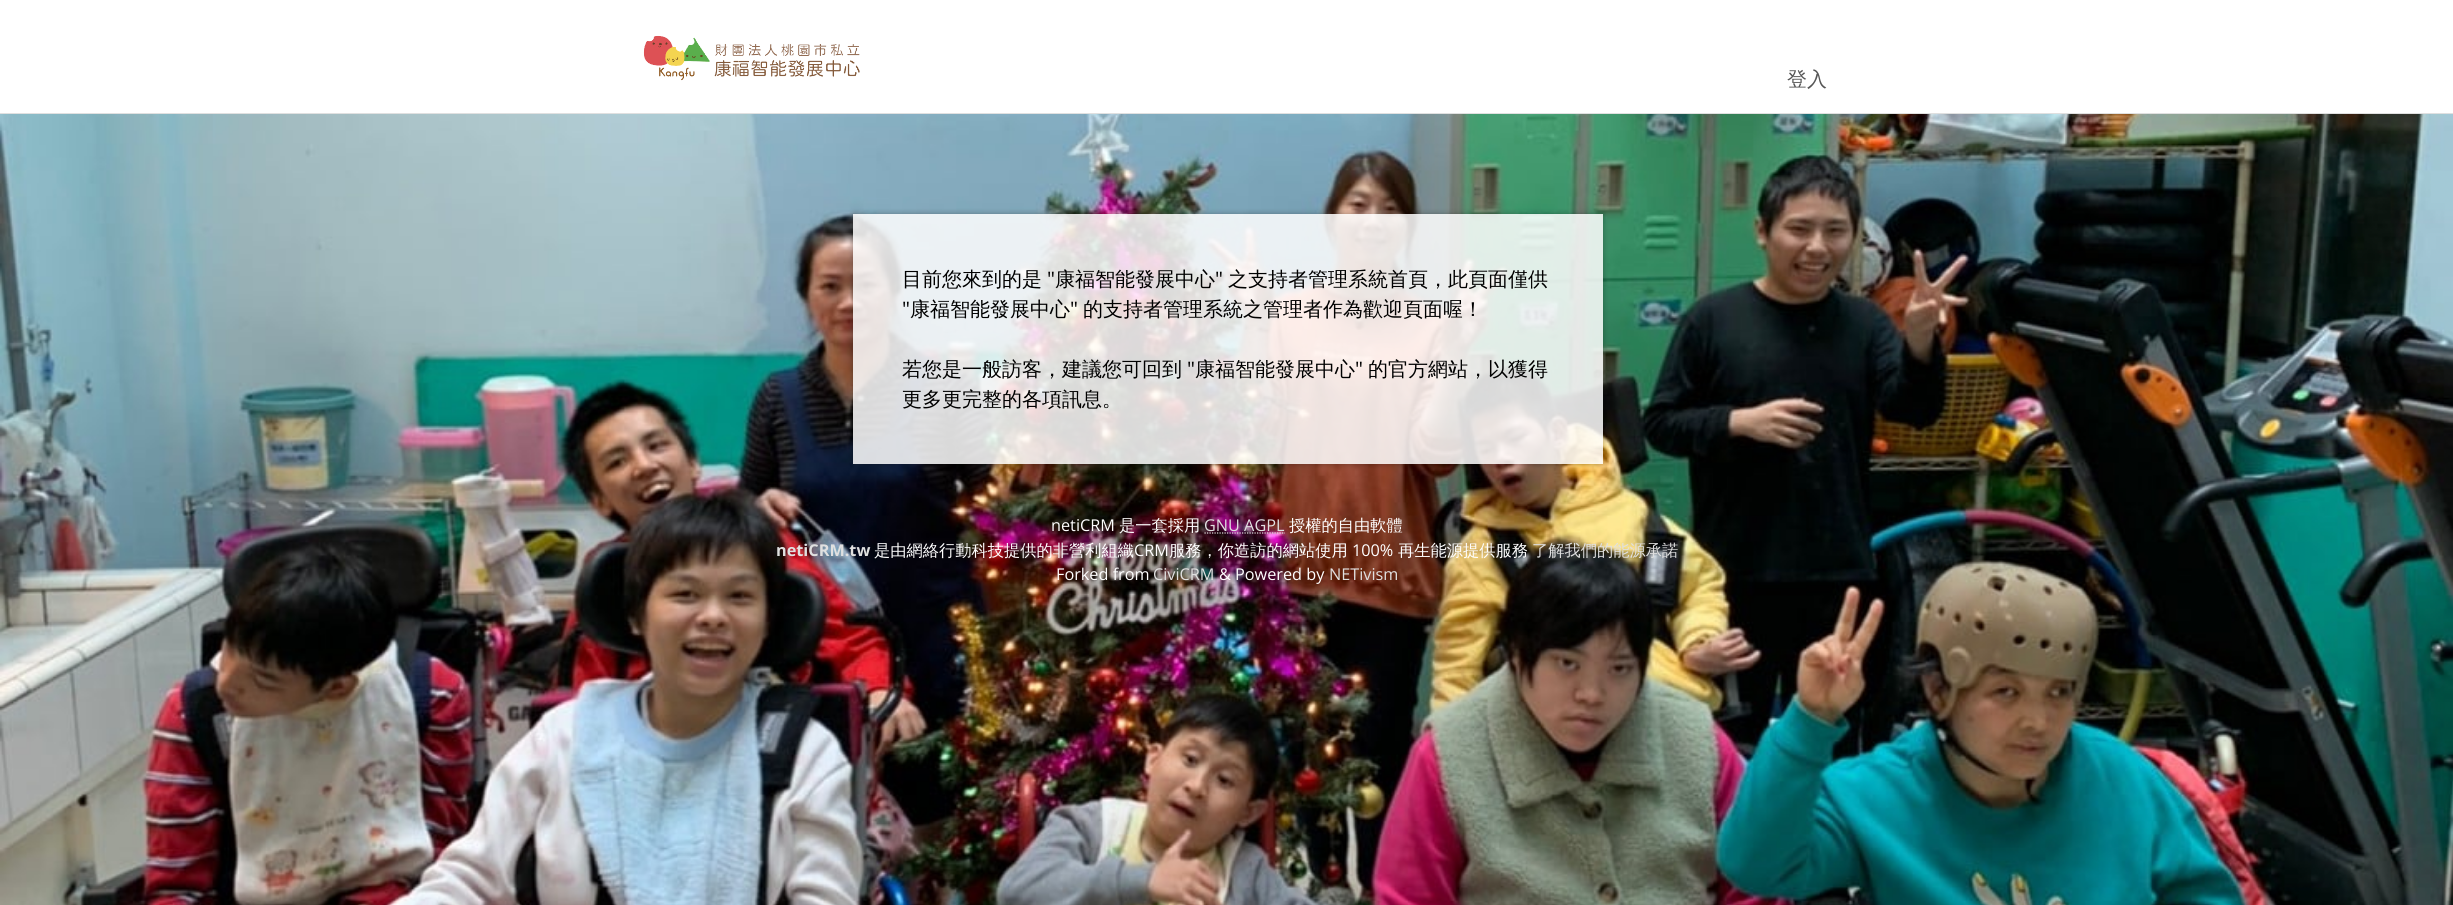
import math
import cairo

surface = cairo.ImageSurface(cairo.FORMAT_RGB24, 2453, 905)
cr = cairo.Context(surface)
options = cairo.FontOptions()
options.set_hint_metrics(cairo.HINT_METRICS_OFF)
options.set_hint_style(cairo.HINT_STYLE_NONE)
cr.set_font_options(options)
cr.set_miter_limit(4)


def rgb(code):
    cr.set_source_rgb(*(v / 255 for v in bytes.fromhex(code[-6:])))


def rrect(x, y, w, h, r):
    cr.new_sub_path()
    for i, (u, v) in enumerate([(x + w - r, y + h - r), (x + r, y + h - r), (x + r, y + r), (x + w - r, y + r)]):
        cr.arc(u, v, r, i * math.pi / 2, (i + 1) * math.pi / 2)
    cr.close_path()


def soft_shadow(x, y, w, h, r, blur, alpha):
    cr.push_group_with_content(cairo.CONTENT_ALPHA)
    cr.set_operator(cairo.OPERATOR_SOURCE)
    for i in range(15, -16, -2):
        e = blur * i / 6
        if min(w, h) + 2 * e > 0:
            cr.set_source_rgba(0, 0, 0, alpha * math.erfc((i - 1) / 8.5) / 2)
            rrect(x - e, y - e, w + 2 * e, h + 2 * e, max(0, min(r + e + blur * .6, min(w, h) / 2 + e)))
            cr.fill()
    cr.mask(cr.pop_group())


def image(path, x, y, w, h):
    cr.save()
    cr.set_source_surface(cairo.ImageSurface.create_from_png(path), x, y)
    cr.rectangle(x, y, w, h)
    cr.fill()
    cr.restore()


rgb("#ffffff")
cr.paint()
image("img/1.png", 0, 114, 2453, 791)
rgb("#e0e0e0")
cr.rectangle(0, 113, 2453, 1)
cr.fill()
image("img/2.png", 643, 35, 217, 46)
cr.save()
cr.set_fill_rule(cairo.FILL_RULE_EVEN_ODD)
cr.new_path()
cr.move_to(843, 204)
cr.line_to(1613, 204)
cr.line_to(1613, 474)
cr.line_to(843, 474)
cr.close_path()
cr.move_to(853, 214)
cr.line_to(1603, 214)
cr.line_to(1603, 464)
cr.line_to(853, 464)
cr.close_path()
cr.clip()
rgb("#000000")
soft_shadow(853, 214, 750, 250, 0, 3, 0.3)
cr.restore()
cr.set_source_rgba(1, 1, 1, 0.85)
cr.rectangle(853, 214, 750, 250)
cr.fill()
cr.new_path()
cr.move_to(1204.5, 533)
cr.line_to(1285, 533)
rgb("#e0e0e0")
cr.set_line_width(1.2)
cr.set_dash([1.25, 1.25])
cr.stroke()
cr.select_font_face("WenQuanYi Zen Hei Medium")
cr.set_font_size(20)
rgb("#555555")
cr.move_to(1787, 86)
cr.show_text("登入")
rgb("#000000")
cr.move_to(902, 286)
cr.show_text("目前您來到的是")
cr.select_font_face("Open Sans")
cr.move_to(1047, 286)
cr.show_text("\"")
cr.select_font_face("WenQuanYi Zen Hei Medium")
cr.move_to(1055, 286)
cr.show_text("康福智能發展中心")
cr.select_font_face("Open Sans")
cr.move_to(1215, 286)
cr.show_text("\"")
cr.select_font_face("WenQuanYi Zen Hei Medium")
cr.move_to(1228, 286)
cr.show_text("之支持者管理系統首頁，此頁面僅供")
cr.select_font_face("Open Sans")
cr.move_to(902, 316)
cr.show_text("\"")
cr.select_font_face("WenQuanYi Zen Hei Medium")
cr.move_to(910, 316)
cr.show_text("康福智能發展中心")
cr.select_font_face("Open Sans")
cr.move_to(1070, 316)
cr.show_text("\"")
cr.select_font_face("WenQuanYi Zen Hei Medium")
cr.move_to(1083, 316)
cr.show_text("的支持者管理系統之管理者作為歡迎頁面喔！")
cr.move_to(902, 376)
cr.show_text("若您是一般訪客，建議您可回到")
cr.select_font_face("Open Sans")
cr.move_to(1187, 376)
cr.show_text("\"")
cr.select_font_face("WenQuanYi Zen Hei Medium")
cr.move_to(1195, 376)
cr.show_text("康福智能發展中心")
cr.select_font_face("Open Sans")
cr.move_to(1355, 376)
cr.show_text("\"")
cr.select_font_face("WenQuanYi Zen Hei Medium")
cr.move_to(1368, 376)
cr.show_text("的官方網站，以獲得")
cr.move_to(902, 406)
cr.show_text("更多更完整的各項訊息。")
cr.select_font_face("Open Sans")
cr.set_font_size(16.25)
rgb("#ffffff")
cr.move_to(1051, 531)
cr.show_text("netiCRM")
cr.select_font_face("WenQuanYi Zen Hei Medium")
cr.move_to(1119, 531)
cr.show_text("是一套採用")
cr.select_font_face("Open Sans")
rgb("#e0e0e0")
cr.move_to(1204, 531)
cr.show_text("GNU AGPL")
cr.select_font_face("WenQuanYi Zen Hei Medium")
rgb("#ffffff")
cr.move_to(1289, 531)
cr.show_text("授權的自由軟體")
cr.select_font_face("Open Sans", cairo.FONT_SLANT_NORMAL, cairo.FONT_WEIGHT_BOLD)
rgb("#e0e0e0")
cr.move_to(776, 556)
cr.show_text("netiCRM.tw")
cr.select_font_face("WenQuanYi Zen Hei Medium")
rgb("#ffffff")
cr.move_to(874, 556)
cr.show_text("是由網絡行動科技提供的非營利組織")
cr.select_font_face("Open Sans")
cr.move_to(1134, 556)
cr.show_text("CRM")
cr.select_font_face("WenQuanYi Zen Hei Medium")
cr.move_to(1169, 556)
cr.show_text("服務，你造訪的網站使用")
cr.select_font_face("Open Sans")
cr.move_to(1352, 556)
cr.show_text("100%")
cr.select_font_face("WenQuanYi Zen Hei Medium")
cr.move_to(1398, 556)
cr.show_text("再生能源提供服務")
rgb("#e0e0e0")
cr.move_to(1532, 556)
cr.show_text("了解我們的能源承諾")
cr.select_font_face("Open Sans")
rgb("#ffffff")
cr.move_to(1056, 580)
cr.show_text("Forked from")
rgb("#e0e0e0")
cr.move_to(1153, 580)
cr.show_text("CiviCRM")
rgb("#ffffff")
cr.move_to(1219, 580)
cr.show_text("& Powered by")
rgb("#e0e0e0")
cr.move_to(1329, 580)
cr.show_text("NETivism")
surface.write_to_png("page.png")
